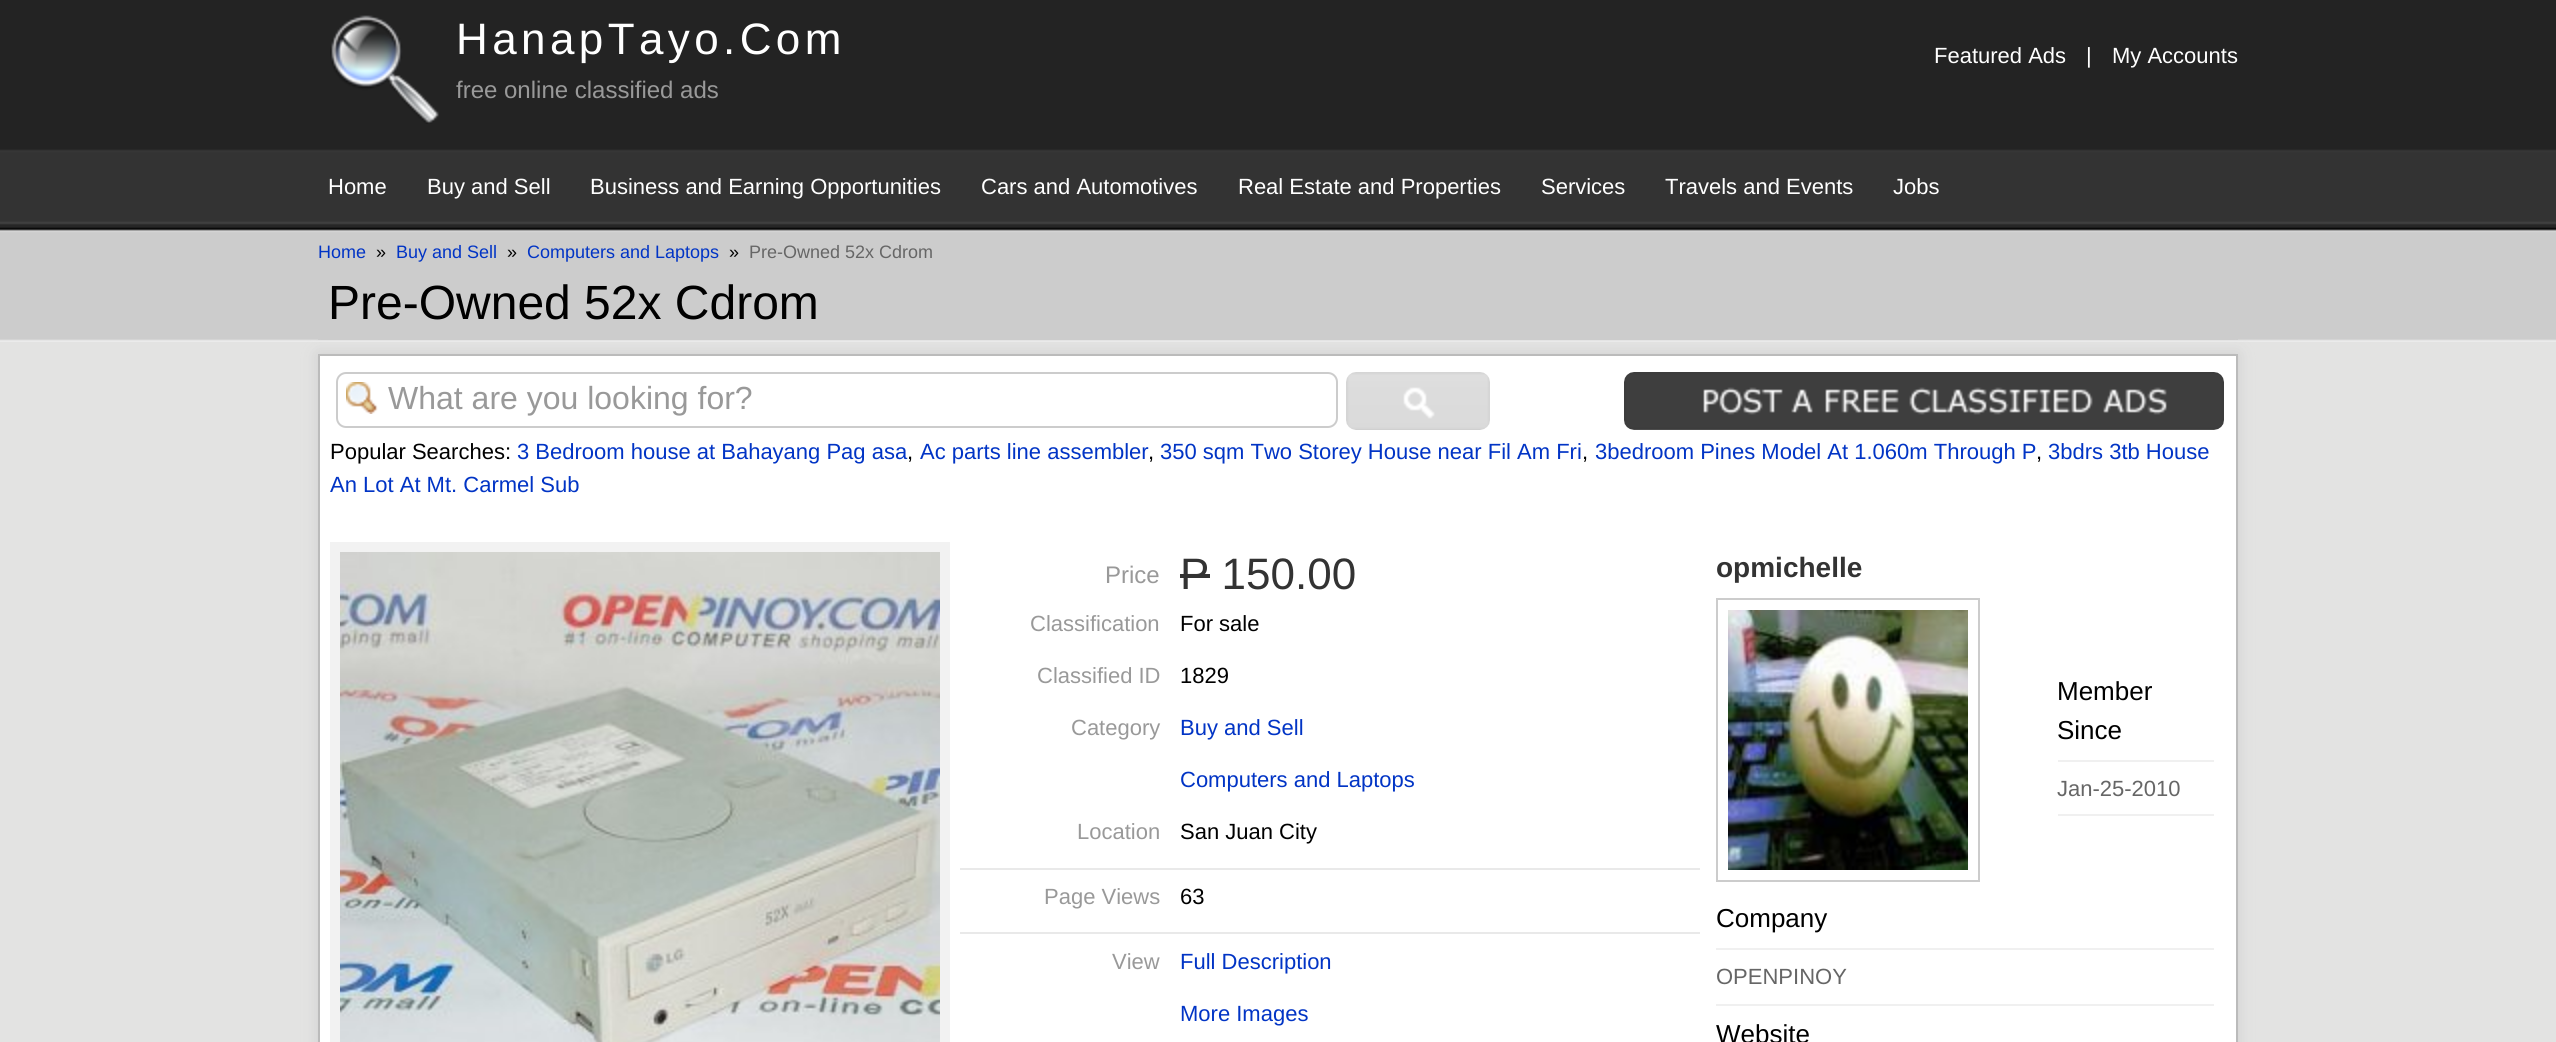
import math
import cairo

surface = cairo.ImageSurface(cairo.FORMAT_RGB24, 2556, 1042)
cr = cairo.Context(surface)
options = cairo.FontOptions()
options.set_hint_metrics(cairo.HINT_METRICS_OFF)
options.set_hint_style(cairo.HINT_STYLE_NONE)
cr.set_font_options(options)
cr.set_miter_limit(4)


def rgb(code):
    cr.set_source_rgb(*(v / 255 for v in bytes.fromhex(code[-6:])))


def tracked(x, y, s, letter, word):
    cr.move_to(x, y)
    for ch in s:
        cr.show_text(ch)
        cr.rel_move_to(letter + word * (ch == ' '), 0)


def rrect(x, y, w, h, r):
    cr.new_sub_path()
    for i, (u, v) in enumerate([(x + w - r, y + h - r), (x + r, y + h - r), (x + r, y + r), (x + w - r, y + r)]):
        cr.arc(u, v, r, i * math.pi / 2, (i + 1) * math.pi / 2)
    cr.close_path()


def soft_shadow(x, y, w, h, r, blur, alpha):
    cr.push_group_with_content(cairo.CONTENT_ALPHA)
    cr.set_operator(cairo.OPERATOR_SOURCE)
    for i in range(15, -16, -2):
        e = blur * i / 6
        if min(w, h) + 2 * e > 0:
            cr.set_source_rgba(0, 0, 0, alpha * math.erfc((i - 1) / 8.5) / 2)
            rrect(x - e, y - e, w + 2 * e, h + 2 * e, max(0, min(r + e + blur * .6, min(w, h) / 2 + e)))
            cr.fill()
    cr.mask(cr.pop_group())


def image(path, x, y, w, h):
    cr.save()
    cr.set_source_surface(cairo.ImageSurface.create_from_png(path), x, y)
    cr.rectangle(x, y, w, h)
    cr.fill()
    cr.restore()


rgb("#e3e3e2")
cr.paint()
image("img/1.png", 0, 0, 2556, 342)
image("img/2.png", 330, 15, 109, 109)
rgb("#cccccc")
cr.rectangle(318, 339, 1920, 1)
cr.fill()
rgb("#d0d0d0")
soft_shadow(318, 354, 1920, 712, 0, 8, 1)
rgb("#ffffff")
cr.rectangle(319, 355, 1918, 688)
cr.fill_preserve()
rgb("#bbbbbb")
cr.stroke()
image("img/3.png", 346, 382, 32, 32)
rrect(337, 373, 1000, 54, 9)
rgb("#cccccc")
cr.stroke()
image("img/4.png", 1346, 372, 144, 58)
image("img/5.png", 1624, 372, 600, 58)
rgb("#f2f2f2")
cr.rectangle(330, 542, 620, 500)
cr.fill()
image("img/6.png", 340, 552, 600, 490)
for x, y, w, h, color in [
    (1180, 574, 30, 4, "#333333"),
    (960, 868, 740, 2, "#e9e9e9"),
    (960, 932, 740, 2, "#e9e9e9"),
]:
    rgb(color)
    cr.rectangle(x, y, w, h)
    cr.fill()
cr.rectangle(1717, 599, 262, 282)
rgb("#cccccc")
cr.stroke()
image("img/7.png", 1728, 610, 240, 260)
for x, y, w, h, color in [
    (2058, 760, 156, 2, "#f0f0f0"),
    (2058, 814, 156, 2, "#f0f0f0"),
    (1716, 948, 498, 2, "#f0f0f0"),
    (1716, 1004, 498, 2, "#f0f0f0"),
]:
    rgb(color)
    cr.rectangle(x, y, w, h)
    cr.fill()
cr.select_font_face("Liberation Sans")
cr.set_font_size(44)
rgb("#ffffff")
tracked(456, 54, "HanapTayo.Com", 4.4, 0)
cr.set_font_size(24)
rgb("#999999")
cr.move_to(456, 98)
cr.show_text("free online classified ads")
cr.set_font_size(22)
rgb("#ffffff")
for x, y, s in [
    (1934, 63, "Featured Ads"),
    (2086, 63, "|"),
    (2112, 63, "My Accounts"),
    (328, 194, "Home"),
    (427, 194, "Buy and Sell"),
    (590, 194, "Business and Earning Opportunities"),
    (981, 194, "Cars and Automotives"),
    (1238, 194, "Real Estate and Properties"),
    (1541, 194, "Services"),
    (1665, 194, "Travels and Events"),
    (1893, 194, "Jobs"),
]:
    cr.move_to(x, y)
    cr.show_text(s)
cr.set_font_size(18)
rgb("#0134c5")
cr.move_to(318, 258)
cr.show_text("Home")
rgb("#000000")
cr.move_to(376, 258)
cr.show_text("»")
rgb("#0134c5")
cr.move_to(396, 258)
cr.show_text("Buy and Sell")
rgb("#000000")
cr.move_to(507, 258)
cr.show_text("»")
rgb("#0134c5")
cr.move_to(527, 258)
cr.show_text("Computers and Laptops")
rgb("#000000")
cr.move_to(729, 258)
cr.show_text("»")
rgb("#666666")
cr.move_to(749, 258)
cr.show_text("Pre-Owned 52x Cdrom")
cr.set_font_size(48)
rgb("#000000")
cr.move_to(328, 319)
cr.show_text("Pre-Owned 52x Cdrom")
cr.set_font_size(32)
rgb("#999999")
cr.move_to(388, 409)
cr.show_text("What are you looking for?")
cr.set_font_size(22)
rgb("#000000")
cr.move_to(330, 459)
cr.show_text("Popular Searches:")
rgb("#0134c5")
cr.move_to(517, 459)
cr.show_text("3 Bedroom house at Bahayang Pag asa")
rgb("#000000")
cr.move_to(907, 459)
cr.show_text(",")
rgb("#0134c5")
cr.move_to(920, 459)
cr.show_text("Ac parts line assembler")
rgb("#000000")
cr.move_to(1148, 459)
cr.show_text(",")
rgb("#0134c5")
cr.move_to(1160, 459)
cr.show_text("350 sqm Two Storey House near Fil Am Fri")
rgb("#000000")
cr.move_to(1582, 459)
cr.show_text(",")
rgb("#0134c5")
cr.move_to(1595, 459)
cr.show_text("3bedroom Pines Model At 1.060m Through P")
rgb("#000000")
cr.move_to(2036, 459)
cr.show_text(",")
rgb("#0134c5")
cr.move_to(2048, 459)
cr.show_text("3bdrs 3tb House")
cr.move_to(330, 492)
cr.show_text("An Lot At Mt. Carmel Sub")
cr.set_font_size(24)
rgb("#999999")
cr.move_to(1105, 583)
cr.show_text("Price")
cr.set_font_size(44)
rgb("#333333")
cr.move_to(1180, 589)
cr.show_text("P 150.00")
cr.set_font_size(22)
rgb("#999999")
cr.move_to(1030, 631)
cr.show_text("Classification")
rgb("#000000")
cr.move_to(1180, 631)
cr.show_text("For sale")
rgb("#999999")
cr.move_to(1037, 683)
cr.show_text("Classified ID")
rgb("#000000")
cr.move_to(1180, 683)
cr.show_text("1829")
rgb("#999999")
cr.move_to(1071, 735)
cr.show_text("Category")
rgb("#0134c5")
cr.move_to(1180, 735)
cr.show_text("Buy and Sell")
cr.move_to(1180, 787)
cr.show_text("Computers and Laptops")
rgb("#999999")
cr.move_to(1077, 839)
cr.show_text("Location")
rgb("#000000")
cr.move_to(1180, 839)
cr.show_text("San Juan City")
rgb("#999999")
cr.move_to(1044, 904)
cr.show_text("Page Views")
rgb("#000000")
cr.move_to(1180, 904)
cr.show_text("63")
rgb("#999999")
cr.move_to(1112, 969)
cr.show_text("View")
rgb("#0134c5")
cr.move_to(1180, 969)
cr.show_text("Full Description")
cr.move_to(1180, 1021)
cr.show_text("More Images")
cr.select_font_face("Liberation Sans", cairo.FONT_SLANT_NORMAL, cairo.FONT_WEIGHT_BOLD)
cr.set_font_size(28)
rgb("#333333")
cr.move_to(1716, 577)
cr.show_text("opmichelle")
cr.select_font_face("Liberation Sans")
cr.set_font_size(26)
rgb("#000000")
cr.move_to(2057, 700)
cr.show_text("Member")
cr.move_to(2057, 739)
cr.show_text("Since")
cr.set_font_size(22)
rgb("#666666")
cr.move_to(2057, 796)
cr.show_text("Jan-25-2010")
cr.set_font_size(26)
rgb("#000000")
cr.move_to(1716, 927)
cr.show_text("Company")
cr.set_font_size(22)
rgb("#666666")
cr.move_to(1716, 984)
cr.show_text("OPENPINOY")
cr.set_font_size(26)
rgb("#000000")
cr.move_to(1716, 1043)
cr.show_text("Website")
surface.write_to_png("page.png")
